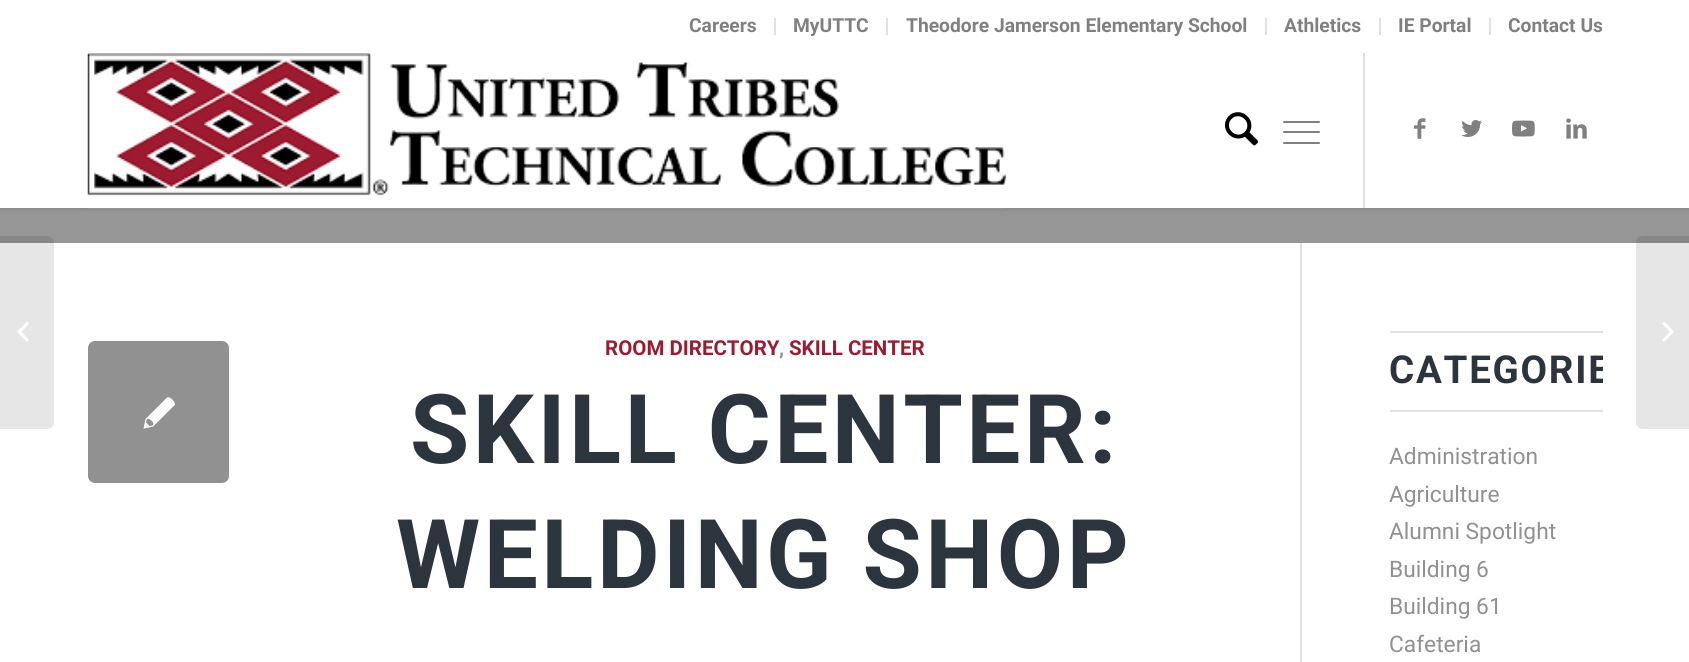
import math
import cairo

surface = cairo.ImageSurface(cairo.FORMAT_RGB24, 1689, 662)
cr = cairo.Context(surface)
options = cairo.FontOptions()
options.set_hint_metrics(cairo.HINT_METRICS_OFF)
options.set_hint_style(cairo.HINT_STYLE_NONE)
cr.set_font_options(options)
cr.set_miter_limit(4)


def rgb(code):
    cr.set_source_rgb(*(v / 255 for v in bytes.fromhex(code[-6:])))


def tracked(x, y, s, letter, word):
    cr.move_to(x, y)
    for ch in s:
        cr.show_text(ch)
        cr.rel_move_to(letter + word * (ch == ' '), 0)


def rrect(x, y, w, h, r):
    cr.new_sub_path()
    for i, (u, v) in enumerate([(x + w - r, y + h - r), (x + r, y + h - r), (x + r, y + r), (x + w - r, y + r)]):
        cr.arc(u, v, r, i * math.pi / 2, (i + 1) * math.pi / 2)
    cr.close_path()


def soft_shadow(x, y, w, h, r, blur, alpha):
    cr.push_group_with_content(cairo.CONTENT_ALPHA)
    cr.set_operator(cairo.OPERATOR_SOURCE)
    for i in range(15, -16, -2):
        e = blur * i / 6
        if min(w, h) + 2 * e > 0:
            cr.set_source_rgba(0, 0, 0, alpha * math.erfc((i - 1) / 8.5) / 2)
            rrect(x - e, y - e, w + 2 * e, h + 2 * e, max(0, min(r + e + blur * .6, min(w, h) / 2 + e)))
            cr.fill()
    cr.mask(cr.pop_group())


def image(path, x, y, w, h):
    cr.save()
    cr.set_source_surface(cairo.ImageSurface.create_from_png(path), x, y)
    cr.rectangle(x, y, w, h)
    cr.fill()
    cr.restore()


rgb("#969696")
cr.paint()
rgb("#000000")
soft_shadow(-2, -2, 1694, 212, 0, 2, 0.1)
for x, y, w, h, color in [
    (0, 53, 1689, 155, "#ffffff"),
    (1363, 51, 2, 157, "#e1e1e1"),
    (0, 0, 1689, 53, "#ffffff"),
    (774, 18, 2, 17, "#e1e1e1"),
    (886, 18, 2, 17, "#e1e1e1"),
    (1265, 18, 2, 17, "#e1e1e1"),
    (1379, 18, 2, 17, "#e1e1e1"),
    (1489, 18, 2, 17, "#e1e1e1"),
]:
    rgb(color)
    cr.rectangle(x, y, w, h)
    cr.fill()
image("img/1.png", 87, 53, 920, 156)
image("img/2.png", 1225, 112, 34, 34)
rgb("#808080")
rrect(1283, 131, 37, 2, 1)
cr.fill()
rrect(1283, 121, 37, 2, 1)
cr.fill()
rrect(1283, 142, 37, 2, 1)
cr.fill()
image("img/3.png", 1414, 118, 12, 21)
image("img/4.png", 1461, 120, 21, 17)
image("img/5.png", 1512, 120, 23, 17)
image("img/6.png", 1566, 118, 21, 21)
rgb("#ffffff")
cr.rectangle(0, 243, 1689, 419)
cr.fill()
cr.set_source_rgba(0, 0, 0, 0.1)
cr.new_path()
cr.move_to(0, 236)
cr.line_to(47, 236)
cr.curve_to(51, 236, 54, 239, 54, 243)
cr.line_to(54, 422)
cr.curve_to(54, 426, 51, 429, 47, 429)
cr.line_to(0, 429)
cr.close_path()
cr.fill()
image("img/7.png", 17, 322, 12, 20)
rgb("#e1e1e1")
cr.rectangle(1300, 243, 2, 419)
cr.fill()
rgb("#919191")
rrect(88, 341, 141, 142, 7)
cr.fill()
image("img/8.png", 143, 397, 32, 32)
rgb("#e1e1e1")
cr.rectangle(1390, 331, 213, 2)
cr.fill()
cr.rectangle(1390, 410, 213, 2)
cr.fill()
cr.set_source_rgba(0, 0, 0, 0.1)
cr.new_path()
cr.move_to(1643, 236)
cr.line_to(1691, 236)
cr.line_to(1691, 429)
cr.line_to(1643, 429)
cr.curve_to(1639, 429, 1636, 426, 1636, 422)
cr.line_to(1636, 243)
cr.curve_to(1636, 239, 1639, 236, 1643, 236)
cr.close_path()
cr.fill()
image("img/9.png", 1662, 322, 12, 20)
cr.select_font_face("Roboto", cairo.FONT_SLANT_NORMAL, cairo.FONT_WEIGHT_BOLD)
cr.set_font_size(19.25)
rgb("#808080")
for x, y, s in [
    (689, 32, "Careers"),
    (793, 32, "MyUTTC"),
    (906, 32, "Theodore Jamerson Elementary School"),
    (1284, 32, "Athletics"),
    (1398, 32, "IE Portal"),
    (1508, 32, "Contact Us"),
]:
    cr.move_to(x, y)
    cr.show_text(s)
cr.set_font_size(20.5)
rgb("#9c1b30")
cr.move_to(605, 355)
cr.show_text("ROOM DIRECTORY")
rgb("#919191")
cr.move_to(779, 355)
cr.show_text(",")
rgb("#9c1b30")
cr.move_to(789, 355)
cr.show_text("SKILL CENTER")
cr.set_font_size(96.25)
rgb("#2c353d")
tracked(410, 463, "SKILL CENTER:", 3.5, 0)
tracked(396, 588, "WELDING SHOP", 3.5, 0)
cr.save()
cr.rectangle(1302, 243, 301, 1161)
cr.clip()
cr.set_font_size(38.5)
tracked(1389, 383, "CATEGORIE", 1.75, 0)
cr.restore()
cr.select_font_face("Roboto")
cr.set_font_size(22.75)
rgb("#919191")
for x, y, s in [
    (1389, 464, "Administration"),
    (1389, 502, "Agriculture"),
    (1389, 539, "Alumni Spotlight"),
    (1389, 577, "Building 6"),
    (1389, 614, "Building 61"),
    (1389, 652, "Cafeteria"),
]:
    cr.move_to(x, y)
    cr.show_text(s)
surface.write_to_png("page.png")
